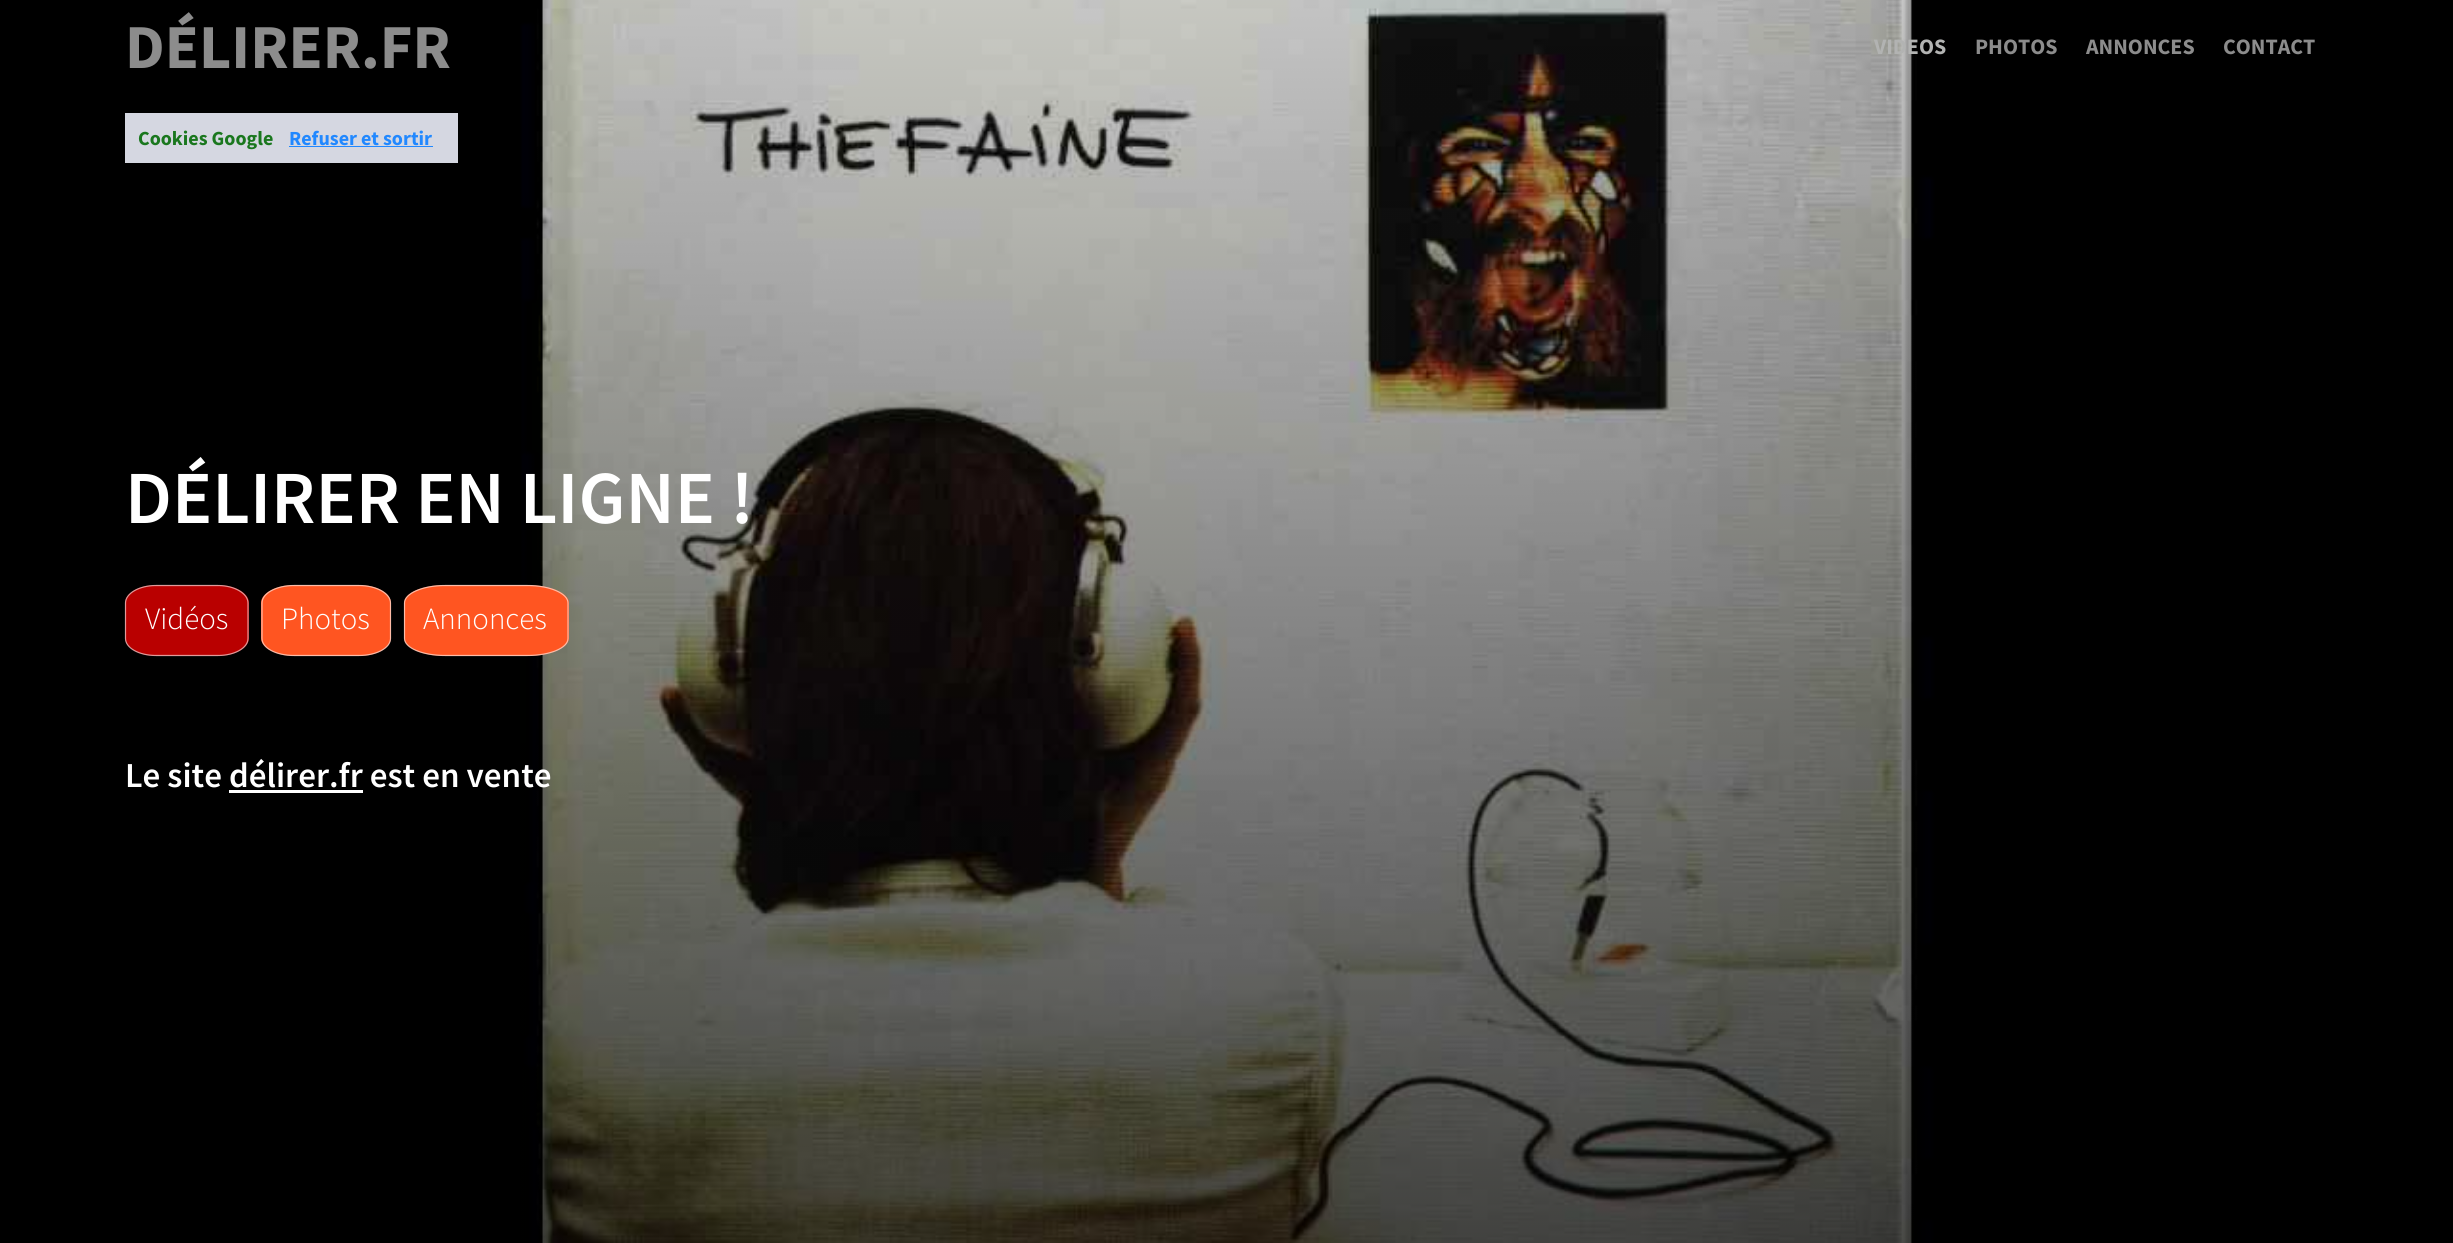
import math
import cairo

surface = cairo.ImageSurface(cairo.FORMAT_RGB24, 2453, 1243)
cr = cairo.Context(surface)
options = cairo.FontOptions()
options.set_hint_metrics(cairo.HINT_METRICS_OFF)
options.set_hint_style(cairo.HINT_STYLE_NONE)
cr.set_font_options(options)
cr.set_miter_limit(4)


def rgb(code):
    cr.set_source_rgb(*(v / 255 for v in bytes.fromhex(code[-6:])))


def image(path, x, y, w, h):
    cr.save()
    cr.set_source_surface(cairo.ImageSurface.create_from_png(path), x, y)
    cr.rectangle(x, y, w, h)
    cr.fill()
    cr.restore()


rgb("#ffffff")
cr.paint()
image("img/1.png", 0, 0, 2453, 1243)
rgb("#d5d7e1")
cr.rectangle(125, 113, 333, 50)
cr.fill()
rgb("#2188ff")
cr.rectangle(289, 146, 144, 1)
cr.fill()
rgb("#b90000")
cr.new_path()
cr.move_to(156, 585)
cr.line_to(218, 585)
cr.curve_to(235, 585, 249, 593, 249, 603)
cr.line_to(249, 638)
cr.curve_to(249, 648, 235, 656, 218, 656)
cr.line_to(156, 656)
cr.curve_to(139, 656, 125, 648, 125, 638)
cr.line_to(125, 603)
cr.curve_to(125, 593, 139, 585, 156, 585)
cr.close_path()
cr.fill()
cr.new_path()
cr.move_to(156, 585.5)
cr.line_to(218, 585.5)
cr.curve_to(234.5, 585.5, 248, 593.5, 248, 603)
cr.line_to(248, 638.5)
cr.curve_to(248, 648, 234.5, 655.5, 218, 655.5)
cr.line_to(156, 655.5)
cr.curve_to(139, 655.5, 125.5, 648, 125.5, 638.5)
cr.line_to(125.5, 603)
cr.curve_to(125.5, 593.5, 139, 585.5, 156, 585.5)
cr.close_path()
cr.set_source_rgba(1, 1, 1, 0.6)
cr.set_line_width(1.2)
cr.stroke()
rgb("#ff5521")
cr.new_path()
cr.move_to(294, 585)
cr.line_to(359, 585)
cr.curve_to(377, 585, 391, 593, 391, 603)
cr.line_to(391, 638)
cr.curve_to(391, 648, 377, 656, 359, 656)
cr.line_to(294, 656)
cr.curve_to(276, 656, 261, 648, 261, 638)
cr.line_to(261, 603)
cr.curve_to(261, 593, 276, 585, 294, 585)
cr.close_path()
cr.fill()
cr.new_path()
cr.move_to(294, 585.5)
cr.line_to(359, 585.5)
cr.curve_to(376.5, 585.5, 390.5, 593.5, 390.5, 603)
cr.line_to(390.5, 638.5)
cr.curve_to(390.5, 648, 376.5, 655.5, 359, 655.5)
cr.line_to(294, 655.5)
cr.curve_to(276, 655.5, 262, 648, 262, 638.5)
cr.line_to(262, 603)
cr.curve_to(262, 593.5, 276, 585.5, 294, 585.5)
cr.close_path()
cr.set_source_rgba(1, 1, 1, 0.6)
cr.stroke()
rgb("#ff5521")
cr.new_path()
cr.move_to(445, 585)
cr.line_to(528, 585)
cr.curve_to(550, 585, 569, 593, 569, 603)
cr.line_to(569, 638)
cr.curve_to(569, 648, 550, 656, 528, 656)
cr.line_to(445, 656)
cr.curve_to(422, 656, 404, 648, 404, 638)
cr.line_to(404, 603)
cr.curve_to(404, 593, 422, 585, 445, 585)
cr.close_path()
cr.fill()
cr.new_path()
cr.move_to(445, 585.5)
cr.line_to(527.5, 585.5)
cr.curve_to(550, 585.5, 568, 593.5, 568, 603)
cr.line_to(568, 638.5)
cr.curve_to(568, 648, 550, 655.5, 527.5, 655.5)
cr.line_to(445, 655.5)
cr.curve_to(422.5, 655.5, 404.5, 648, 404.5, 638.5)
cr.line_to(404.5, 603)
cr.curve_to(404.5, 593.5, 422.5, 585.5, 445, 585.5)
cr.close_path()
cr.set_source_rgba(1, 1, 1, 0.6)
cr.stroke()
rgb("#ffffff")
cr.rectangle(229, 790, 134, 3)
cr.fill()
cr.select_font_face("Source Sans Pro", cairo.FONT_SLANT_NORMAL, cairo.FONT_WEIGHT_BOLD)
cr.set_font_size(62.5)
rgb("#8c8c8c")
cr.move_to(125, 68)
cr.show_text("DÉLIRER.FR")
cr.set_font_size(22)
rgb("#b2b3b2")
cr.move_to(1874, 54)
cr.show_text("VIDEOS")
rgb("#8c8c8c")
for x, y, s in [
    (1975, 54, "PHOTOS"),
    (2086, 54, "ANNONCES"),
    (2223, 54, "CONTACT"),
]:
    cr.move_to(x, y)
    cr.show_text(s)
cr.set_font_size(20)
rgb("#1a771e")
cr.move_to(138, 145)
cr.show_text("Cookies Google")
rgb("#2188ff")
cr.move_to(289, 145)
cr.show_text("Refuser et sortir")
cr.select_font_face("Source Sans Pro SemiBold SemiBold")
cr.set_font_size(75)
rgb("#ffffff")
cr.move_to(125, 523)
cr.show_text("DÉLIRER EN LIGNE !")
cr.select_font_face("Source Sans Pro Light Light")
cr.set_font_size(31)
for x, y, s in [
    (145, 629, "Vidéos"),
    (281, 629, "Photos"),
    (423, 629, "Annonces"),
]:
    cr.move_to(x, y)
    cr.show_text(s)
cr.select_font_face("Source Sans Pro SemiBold SemiBold")
cr.set_font_size(35)
cr.move_to(125, 787)
cr.show_text("Le site délirer.fr est en vente")
surface.write_to_png("page.png")
